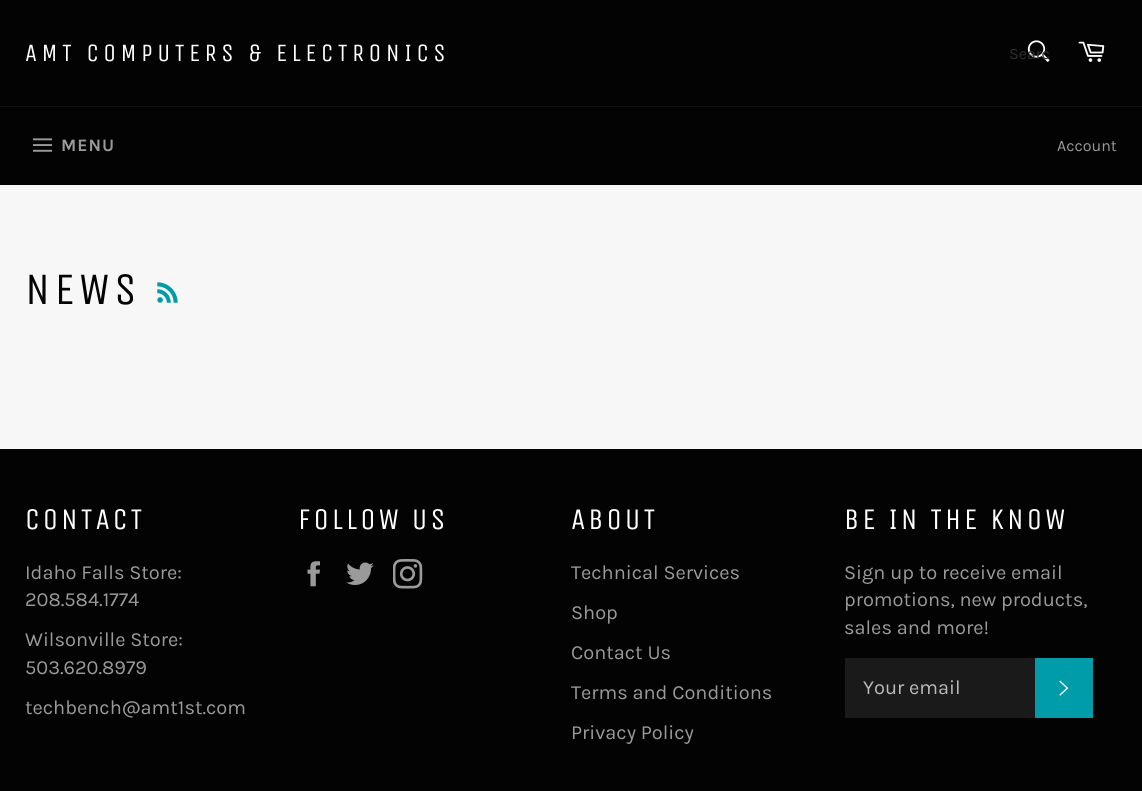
import math
import cairo

surface = cairo.ImageSurface(cairo.FORMAT_RGB24, 1142, 791)
cr = cairo.Context(surface)
options = cairo.FontOptions()
options.set_hint_metrics(cairo.HINT_METRICS_OFF)
options.set_hint_style(cairo.HINT_STYLE_NONE)
cr.set_font_options(options)
cr.set_miter_limit(4)


def rgb(code):
    cr.set_source_rgb(*(v / 255 for v in bytes.fromhex(code[-6:])))


def tracked(x, y, s, letter, word):
    cr.move_to(x, y)
    for ch in s:
        cr.show_text(ch)
        cr.rel_move_to(letter + word * (ch == ' '), 0)


def image(path, x, y, w, h):
    cr.save()
    cr.set_source_surface(cairo.ImageSurface.create_from_png(path), x, y)
    cr.rectangle(x, y, w, h)
    cr.fill()
    cr.restore()


rgb("#f7f7f7")
cr.paint()
rgb("#030303")
cr.rectangle(0, 0, 1142, 106)
cr.fill()
image("img/1.png", 1027, 40, 23, 22)
image("img/2.png", 1078, 41, 27, 21)
cr.rectangle(0, 107, 1142, 78)
cr.fill()
rgb("#101010")
cr.rectangle(0, 106, 1142, 1)
cr.fill()
image("img/3.png", 32, 138, 21, 14)
image("img/4.png", 157, 282, 21, 21)
rgb("#030303")
cr.rectangle(0, 449, 1142, 342)
cr.fill()
image("img/5.png", 307, 561, 13, 26)
image("img/6.png", 346, 562, 28, 23)
image("img/7.png", 393, 559, 30, 30)
rgb("#1a1a1a")
cr.rectangle(845, 658, 190, 60)
cr.fill()
rgb("#009ca9")
cr.rectangle(1035, 658, 58, 60)
cr.fill()
image("img/8.png", 1059, 680, 10, 16)
cr.select_font_face("Unica One")
cr.set_font_size(25)
rgb("#ffffff")
tracked(25, 61, "AMT COMPUTERS & ELECTRONICS", 4.5, 0)
cr.select_font_face("Karla")
cr.set_font_size(16)
rgb("#2e2e2e")
cr.move_to(1009, 59)
cr.show_text("Searc")
cr.select_font_face("Karla", cairo.FONT_SLANT_NORMAL, cairo.FONT_WEIGHT_BOLD)
cr.set_font_size(17.5)
rgb("#9a9a9a")
tracked(61, 151, "MENU", 1, 0)
cr.select_font_face("Karla")
cr.set_font_size(16)
cr.move_to(1057, 151)
cr.show_text("Account")
cr.select_font_face("Unica One")
cr.set_font_size(45)
rgb("#030303")
tracked(25, 304, "NEWS", 4.5, 0)
cr.set_font_size(30)
rgb("#ffffff")
tracked(25, 529, "CONTACT", 3, 0)
cr.select_font_face("Karla")
cr.set_font_size(20)
rgb("#9a9a9a")
for x, y, s in [
    (25, 579, "Idaho Falls Store:"),
    (25, 606, "208.584.1774"),
    (25, 646, "Wilsonville Store:"),
    (25, 674, "503.620.8979"),
    (25, 714, "techbench@amt1st.com"),
]:
    cr.move_to(x, y)
    cr.show_text(s)
cr.select_font_face("Unica One")
cr.set_font_size(30)
rgb("#ffffff")
tracked(298, 529, "FOLLOW US", 3, 0)
tracked(571, 529, "ABOUT", 3, 0)
cr.select_font_face("Karla")
cr.set_font_size(20)
rgb("#9a9a9a")
for x, y, s in [
    (571, 579, "Technical Services"),
    (571, 619, "Shop"),
    (571, 659, "Contact Us"),
    (571, 699, "Terms and Conditions"),
    (571, 739, "Privacy Policy"),
]:
    cr.move_to(x, y)
    cr.show_text(s)
cr.select_font_face("Unica One")
cr.set_font_size(30)
rgb("#ffffff")
tracked(844, 529, "BE IN THE KNOW", 3, 0)
cr.select_font_face("Karla")
cr.set_font_size(20)
rgb("#9a9a9a")
for x, y, s in [
    (844, 579, "Sign up to receive email"),
    (844, 606, "promotions, new products,"),
    (844, 634, "sales and more!"),
]:
    cr.move_to(x, y)
    cr.show_text(s)
rgb("#bababa")
cr.move_to(863, 694)
cr.show_text("Your email")
surface.write_to_png("page.png")
